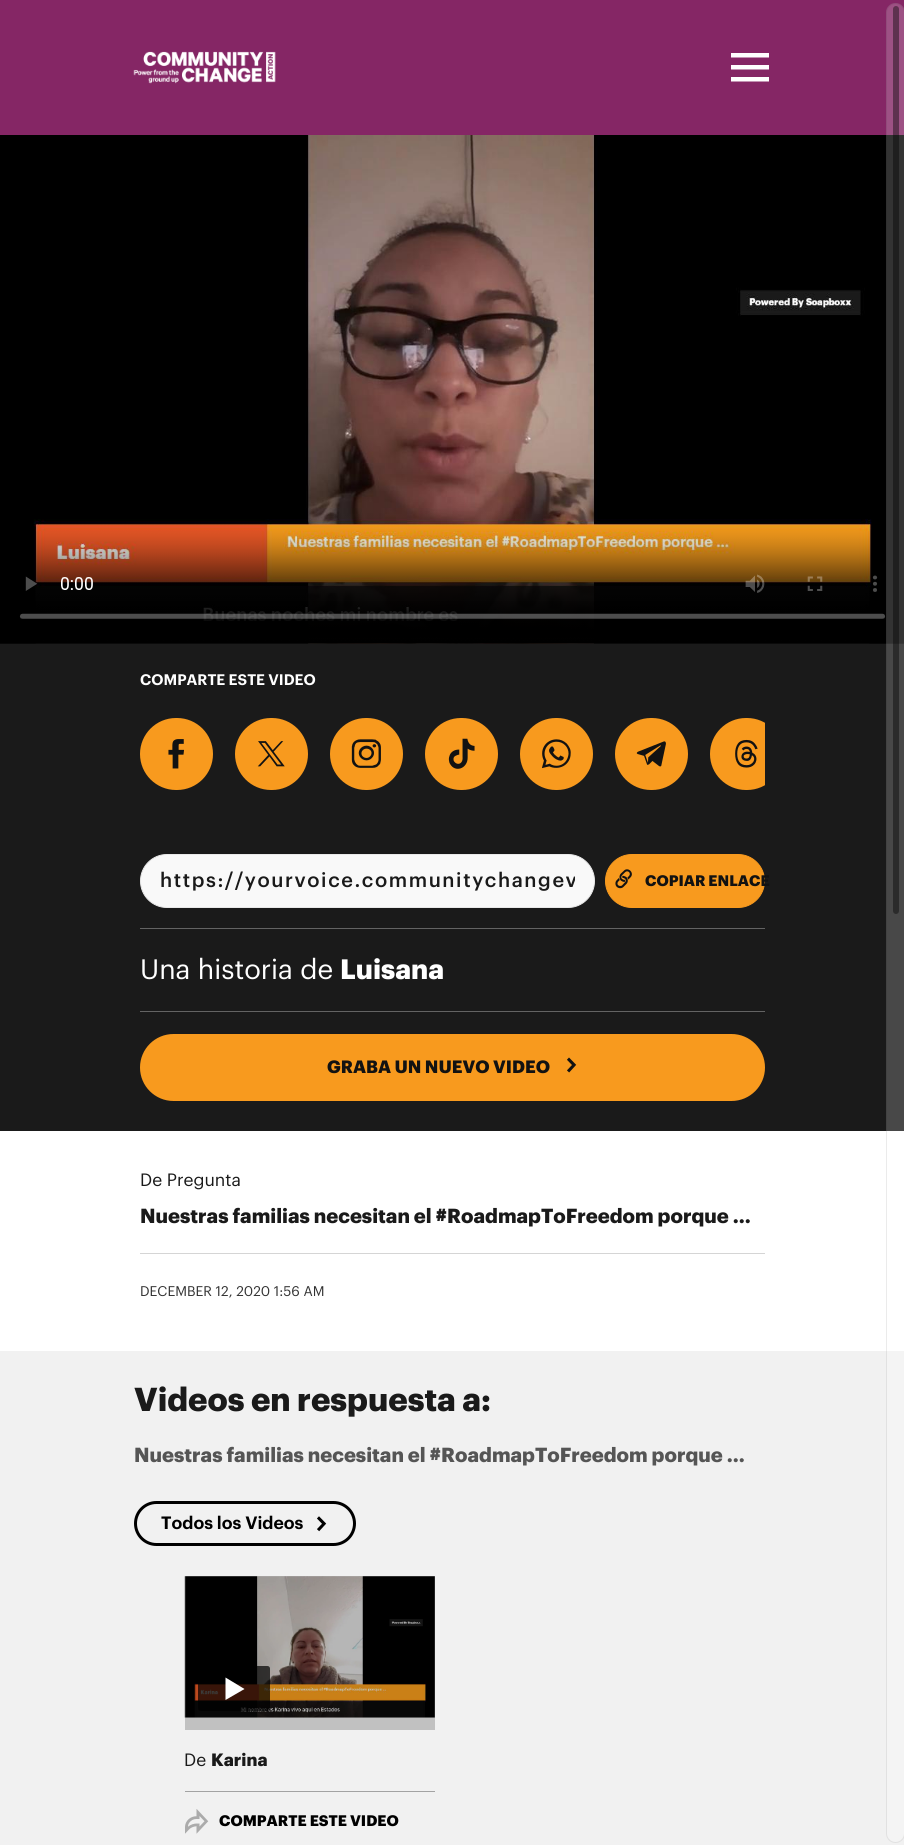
import math
import cairo

surface = cairo.ImageSurface(cairo.FORMAT_RGB24, 904, 1845)
cr = cairo.Context(surface)
options = cairo.FontOptions()
options.set_hint_metrics(cairo.HINT_METRICS_OFF)
options.set_hint_style(cairo.HINT_STYLE_NONE)
cr.set_font_options(options)
cr.set_miter_limit(4)


def rgb(code):
    cr.set_source_rgb(*(v / 255 for v in bytes.fromhex(code[-6:])))


def tracked(x, y, s, letter, word):
    cr.move_to(x, y)
    for ch in s:
        cr.show_text(ch)
        cr.rel_move_to(letter + word * (ch == ' '), 0)


def rrect(x, y, w, h, r):
    cr.new_sub_path()
    for i, (u, v) in enumerate([(x + w - r, y + h - r), (x + r, y + h - r), (x + r, y + r), (x + w - r, y + r)]):
        cr.arc(u, v, r, i * math.pi / 2, (i + 1) * math.pi / 2)
    cr.close_path()


def image(path, x, y, w, h):
    cr.save()
    cr.set_source_surface(cairo.ImageSurface.create_from_png(path), x, y)
    cr.rectangle(x, y, w, h)
    cr.fill()
    cr.restore()


rgb("#ffffff")
cr.paint()
rgb("#852665")
cr.rectangle(0, 0, 904, 135)
cr.fill()
image("img/1.png", 133, 51, 143, 33)
rgb("#ffffff")
cr.new_path()
cr.move_to(731, 53)
cr.line_to(769, 53)
cr.line_to(769, 57.5)
cr.line_to(731, 57.5)
cr.close_path()
cr.move_to(731, 65)
cr.line_to(769, 65)
cr.line_to(769, 69.5)
cr.line_to(731, 69.5)
cr.close_path()
cr.move_to(731, 77)
cr.line_to(769, 77)
cr.line_to(769, 81.5)
cr.line_to(731, 81.5)
cr.close_path()
cr.fill()
rgb("#1a1a1a")
cr.rectangle(0, 643, 904, 488)
cr.fill()
image("img/2.png", 0, 135, 904, 509)
rgb("#f89a1e")
rrect(141.5, 719.5, 70, 69, 34.5)
cr.fill_preserve()
cr.set_line_width(3)
cr.stroke()
image("img/3.png", 168, 739, 16, 30)
rrect(236.5, 719.5, 70, 69, 34.5)
cr.fill_preserve()
cr.stroke()
image("img/4.png", 257, 741, 28, 26)
rrect(331.5, 719.5, 70, 69, 34.5)
cr.fill_preserve()
cr.stroke()
image("img/5.png", 351, 739, 30, 29)
rrect(426.5, 719.5, 70, 69, 34.5)
cr.fill_preserve()
cr.stroke()
image("img/6.png", 448, 738, 27, 31)
rrect(521.5, 719.5, 70, 69, 34.5)
cr.fill_preserve()
cr.stroke()
image("img/7.png", 542, 739, 29, 30)
rrect(616.5, 719.5, 70, 69, 34.5)
cr.fill_preserve()
cr.stroke()
image("img/8.png", 636, 741, 30, 26)
cr.save()
cr.rectangle(140, 698, 625, 131)
cr.clip()
rrect(711.5, 719.5, 70, 69, 34.5)
cr.fill_preserve()
cr.stroke()
cr.restore()
image("img/9.png", 735, 739, 23, 29)
rgb("#f9f9f9")
rrect(140.5, 854.5, 454, 53, 26.5)
cr.fill_preserve()
rgb("#e9e9e9")
cr.set_line_width(1)
cr.stroke()
rgb("#f89a1e")
rrect(605.5, 854.5, 159, 53, 26.5)
cr.fill_preserve()
cr.stroke()
image("img/10.png", 615, 869, 17, 20)
rgb("#636363")
cr.rectangle(140, 928, 625, 1)
cr.fill()
cr.rectangle(140, 1011, 625, 1)
cr.fill()
rgb("#f89a1e")
rrect(141.5, 1035.5, 622, 64, 32)
cr.fill_preserve()
cr.set_line_width(3)
cr.stroke()
image("img/11.png", 567, 1057, 10, 16)
for x, y, w, h, color in [
    (140, 1253, 625, 1, "#d5d5d5"),
    (0, 1351, 904, 494, "#f1f1f1"),
    (185, 1576, 250, 154, "#c1c1c1"),
]:
    rgb(color)
    cr.rectangle(x, y, w, h)
    cr.fill()
rrect(135.5, 1502.5, 219, 42, 21)
rgb("#000000")
cr.stroke()
image("img/12.png", 317, 1516, 10, 16)
image("img/13.png", 184, 1576, 251, 142)
cr.set_source_rgba(0, 0, 0, 0.7)
rrect(198, 1666, 72, 45, 2.5)
cr.fill()
rgb("#ffffff")
cr.new_path()
cr.move_to(244.5, 1689)
cr.line_to(225.5, 1700)
cr.line_to(225.5, 1677.5)
cr.close_path()
cr.fill()
rgb("#a3a3a3")
cr.rectangle(185, 1791, 250, 1)
cr.fill()
image("img/14.png", 185, 1809, 24, 25)
cr.set_source_rgba(1, 1, 1, 0.2)
rrect(886, 3, 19, 1840, 9.5)
cr.fill()
rrect(886.5, 3.5, 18, 1839, 9)
cr.set_source_rgba(0, 0, 0, 0.08)
cr.set_line_width(1)
cr.stroke()
cr.set_source_rgba(0, 0, 0, 0.4)
rrect(893, 6, 6, 908, 3)
cr.fill()
cr.select_font_face("Graphik SemiBold")
cr.set_font_size(15)
rgb("#ffffff")
cr.move_to(140, 685)
cr.show_text("COMPARTE ESTE VIDEO")
cr.save()
cr.rectangle(141, 870, 434, 23)
cr.clip()
cr.select_font_face("Graphik Medium")
cr.set_font_size(20)
rgb("#1a1a1a")
tracked(160, 887, "https://yourvoice.communitychangev", 1.6, 0)
cr.restore()
cr.select_font_face("Graphik", cairo.FONT_SLANT_NORMAL, cairo.FONT_WEIGHT_BOLD)
rgb("#121212")
cr.move_to(645, 886)
cr.show_text("COPIAR ENLACE")
cr.select_font_face("Graphik")
cr.set_font_size(27.5)
rgb("#ffffff")
cr.move_to(140, 979)
cr.show_text("Una historia de")
cr.select_font_face("Graphik", cairo.FONT_SLANT_NORMAL, cairo.FONT_WEIGHT_BOLD)
cr.move_to(340, 979)
cr.show_text("Luisana")
cr.set_font_size(17.5)
rgb("#121212")
cr.move_to(327, 1073)
cr.show_text("GRABA UN NUEVO VIDEO")
cr.select_font_face("Graphik")
rgb("#1a1a1a")
cr.move_to(140, 1186)
cr.show_text("De Pregunta")
cr.select_font_face("Graphik", cairo.FONT_SLANT_NORMAL, cairo.FONT_WEIGHT_BOLD)
cr.set_font_size(20)
cr.move_to(140, 1223)
cr.show_text("Nuestras familias necesitan el #RoadmapToFreedom porque ...")
cr.select_font_face("Graphik")
cr.set_font_size(13.75)
rgb("#313131")
cr.move_to(140, 1296)
cr.show_text("DECEMBER 12, 2020 1:56 AM")
cr.select_font_face("Graphik", cairo.FONT_SLANT_NORMAL, cairo.FONT_WEIGHT_BOLD)
cr.set_font_size(32.5)
rgb("#1a1a1a")
cr.move_to(134, 1411)
cr.show_text("Videos en respuesta a:")
cr.set_font_size(20)
rgb("#555555")
cr.move_to(134, 1462)
cr.show_text("Nuestras familias necesitan el #RoadmapToFreedom porque ...")
cr.select_font_face("Graphik SemiBold")
cr.set_font_size(17.5)
rgb("#000000")
cr.move_to(161, 1529)
cr.show_text("Todos los Videos")
cr.select_font_face("Graphik")
rgb("#1a1a1a")
cr.move_to(184, 1766)
cr.show_text("De")
cr.select_font_face("Graphik", cairo.FONT_SLANT_NORMAL, cairo.FONT_WEIGHT_BOLD)
cr.move_to(211, 1766)
cr.show_text("Karina")
cr.set_font_size(15)
rgb("#000000")
cr.move_to(219, 1826)
cr.show_text("COMPARTE ESTE VIDEO")
surface.write_to_png("page.png")
